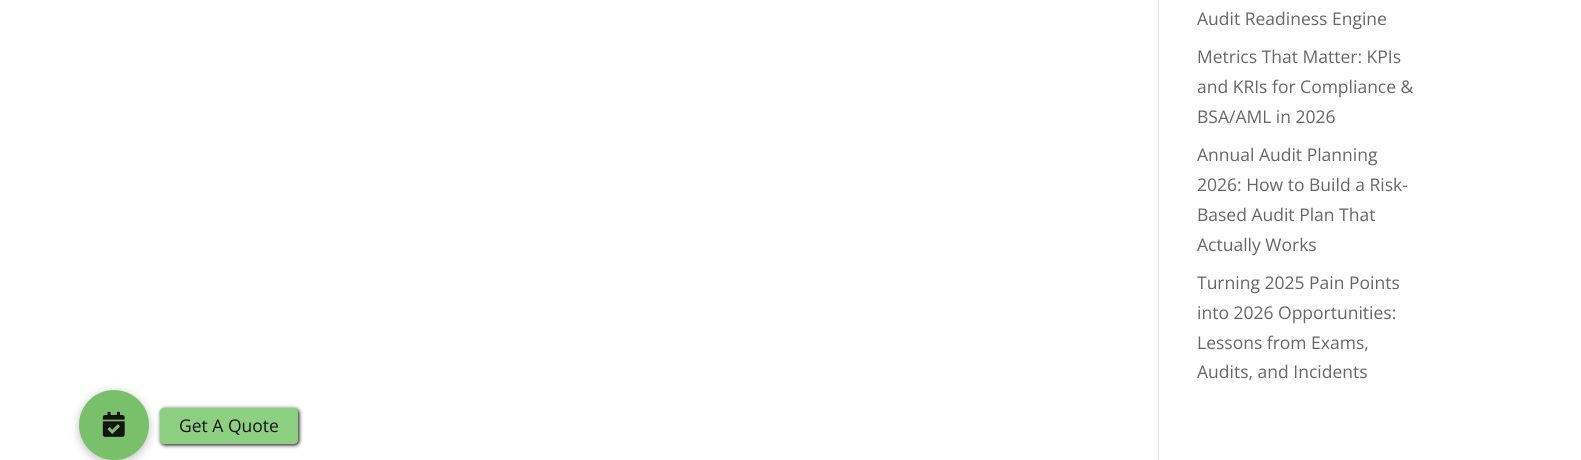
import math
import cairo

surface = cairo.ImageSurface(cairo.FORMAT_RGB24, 1581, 460)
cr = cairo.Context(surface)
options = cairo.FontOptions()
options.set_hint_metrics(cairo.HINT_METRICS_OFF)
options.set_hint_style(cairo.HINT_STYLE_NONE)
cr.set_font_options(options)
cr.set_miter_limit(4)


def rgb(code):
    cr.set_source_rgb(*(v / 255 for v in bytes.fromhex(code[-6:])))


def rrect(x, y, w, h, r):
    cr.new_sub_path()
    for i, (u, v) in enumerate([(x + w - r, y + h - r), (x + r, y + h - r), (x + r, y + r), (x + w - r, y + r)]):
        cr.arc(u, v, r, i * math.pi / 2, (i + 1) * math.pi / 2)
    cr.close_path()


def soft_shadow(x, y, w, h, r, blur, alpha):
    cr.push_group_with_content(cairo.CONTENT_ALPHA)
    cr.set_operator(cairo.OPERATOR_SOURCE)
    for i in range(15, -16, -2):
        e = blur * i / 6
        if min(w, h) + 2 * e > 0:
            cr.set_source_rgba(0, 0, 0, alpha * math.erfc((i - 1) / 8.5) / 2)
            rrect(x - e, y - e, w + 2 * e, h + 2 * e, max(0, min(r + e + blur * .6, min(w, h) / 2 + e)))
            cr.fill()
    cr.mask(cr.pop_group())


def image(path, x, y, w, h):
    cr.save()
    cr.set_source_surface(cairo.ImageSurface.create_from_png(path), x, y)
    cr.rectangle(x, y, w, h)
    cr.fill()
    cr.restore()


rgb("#ffffff")
cr.paint()
rgb("#e2e2e2")
cr.rectangle(1158, 0, 1, 460)
cr.fill()
rgb("#000000")
soft_shadow(78, 391, 72, 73, 36, 4, 0.2)
rgb("#78c06a")
cr.arc(114, 425, 35, 0, 2 * math.pi)
cr.fill()
image("img/1.png", 102, 411, 23, 26)
rgb("#000000")
soft_shadow(161, 409, 138, 36, 4, 2, 1)
rgb("#8ed081")
rrect(160, 408, 138, 36, 4)
cr.fill()
cr.select_font_face("Open Sans")
cr.set_font_size(17.5)
rgb("#666666")
for x, y, s in [
    (1197, 25, "Audit Readiness Engine"),
    (1197, 63, "Metrics That Matter: KPIs"),
    (1197, 93, "and KRIs for Compliance &"),
    (1197, 123, "BSA/AML in 2026"),
    (1197, 161, "Annual Audit Planning"),
    (1197, 191, "2026: How to Build a Risk-"),
    (1197, 221, "Based Audit Plan That"),
    (1197, 251, "Actually Works"),
    (1197, 289, "Turning 2025 Pain Points"),
    (1197, 319, "into 2026 Opportunities:"),
    (1197, 349, "Lessons from Exams,"),
    (1197, 378, "Audits, and Incidents"),
]:
    cr.move_to(x, y)
    cr.show_text(s)
rgb("#141414")
cr.move_to(179, 432)
cr.show_text("Get A Quote")
surface.write_to_png("page.png")
